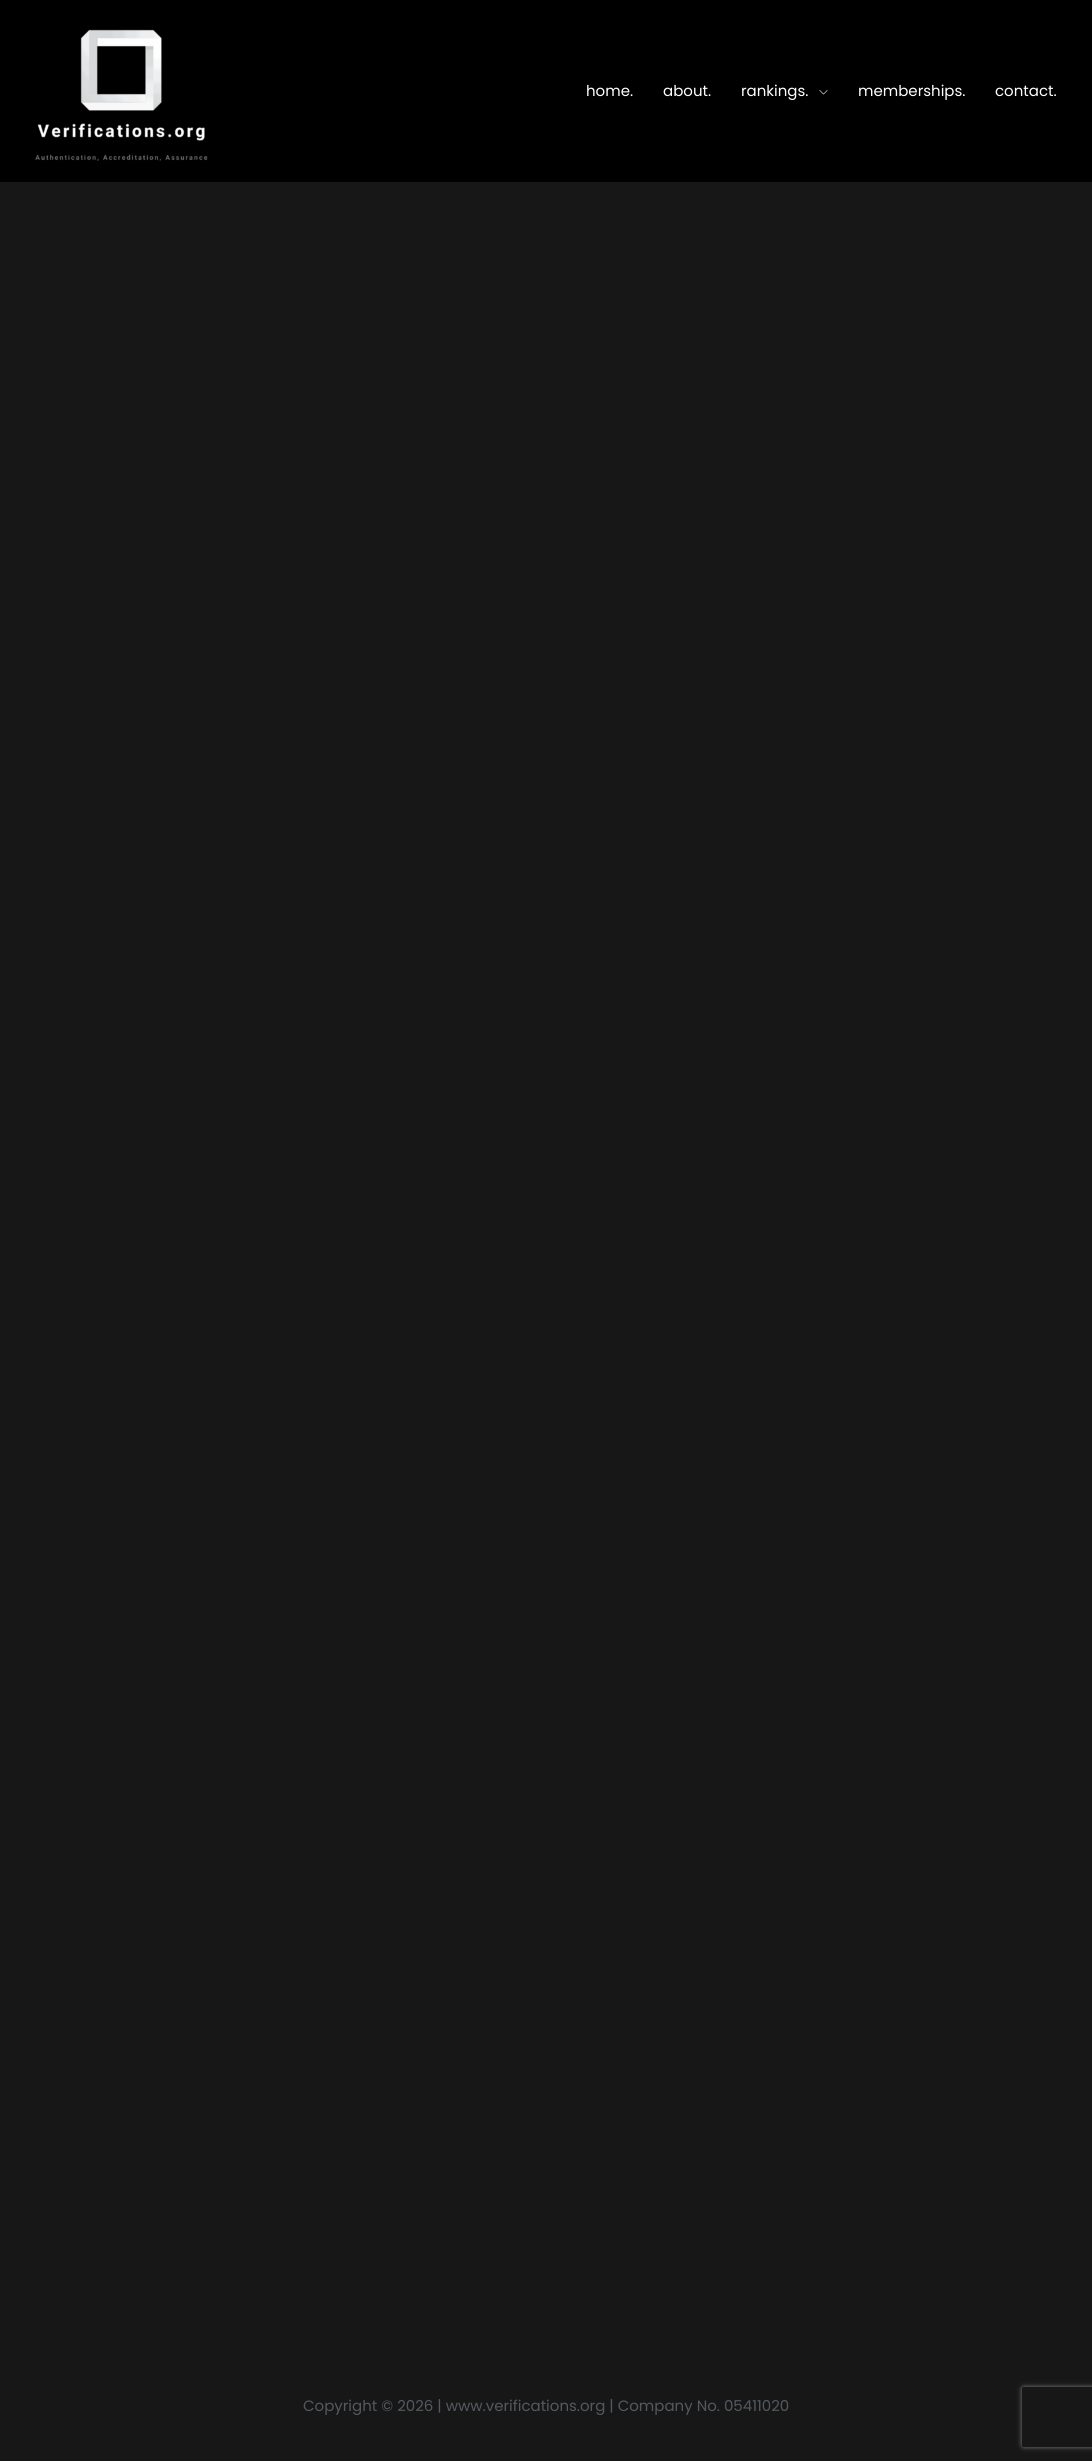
import math
import cairo

surface = cairo.ImageSurface(cairo.FORMAT_RGB24, 1092, 2461)
cr = cairo.Context(surface)
options = cairo.FontOptions()
options.set_hint_metrics(cairo.HINT_METRICS_OFF)
options.set_hint_style(cairo.HINT_STYLE_NONE)
cr.set_font_options(options)
cr.set_miter_limit(4)


def rgb(code):
    cr.set_source_rgb(*(v / 255 for v in bytes.fromhex(code[-6:])))


def rrect(x, y, w, h, r):
    cr.new_sub_path()
    for i, (u, v) in enumerate([(x + w - r, y + h - r), (x + r, y + h - r), (x + r, y + r), (x + w - r, y + r)]):
        cr.arc(u, v, r, i * math.pi / 2, (i + 1) * math.pi / 2)
    cr.close_path()


def soft_shadow(x, y, w, h, r, blur, alpha):
    cr.push_group_with_content(cairo.CONTENT_ALPHA)
    cr.set_operator(cairo.OPERATOR_SOURCE)
    for i in range(15, -16, -2):
        e = blur * i / 6
        if min(w, h) + 2 * e > 0:
            cr.set_source_rgba(0, 0, 0, alpha * math.erfc((i - 1) / 8.5) / 2)
            rrect(x - e, y - e, w + 2 * e, h + 2 * e, max(0, min(r + e + blur * .6, min(w, h) / 2 + e)))
            cr.fill()
    cr.mask(cr.pop_group())


def image(path, x, y, w, h):
    cr.save()
    cr.set_source_surface(cairo.ImageSurface.create_from_png(path), x, y)
    cr.rectangle(x, y, w, h)
    cr.fill()
    cr.restore()


rgb("#171717")
cr.paint()
rgb("#000000")
cr.rectangle(0, 0, 1092, 182)
cr.fill()
image("img/1.png", 35, 29, 173, 132)
image("img/2.png", 819, 90, 9, 5)
cr.save()
cr.set_fill_rule(cairo.FILL_RULE_EVEN_ODD)
cr.new_path()
cr.move_to(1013, 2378)
cr.line_to(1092, 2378)
cr.line_to(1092, 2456)
cr.line_to(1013, 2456)
cr.close_path()
cr.move_to(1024, 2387)
cr.line_to(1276, 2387)
cr.curve_to(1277, 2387, 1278, 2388, 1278, 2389)
cr.line_to(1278, 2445)
cr.curve_to(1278, 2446, 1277, 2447, 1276, 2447)
cr.line_to(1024, 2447)
cr.curve_to(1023, 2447, 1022, 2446, 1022, 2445)
cr.line_to(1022, 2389)
cr.curve_to(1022, 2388, 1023, 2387, 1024, 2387)
cr.close_path()
cr.clip()
rgb("#808080")
soft_shadow(1022, 2387, 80, 60, 2, 2.5, 1)
cr.restore()
cr.select_font_face("Poppins")
cr.set_font_size(15)
rgb("#ffffff")
for x, y, s in [
    (586, 96, "home."),
    (663, 96, "about."),
    (741, 96, "rankings."),
    (858, 96, "memberships."),
    (995, 96, "contact."),
]:
    cr.move_to(x, y)
    cr.show_text(s)
rgb("#54595f")
cr.move_to(303, 2411)
cr.show_text("Copyright © 2026 | www.verifications.org | Company No. 05411020")
surface.write_to_png("page.png")
